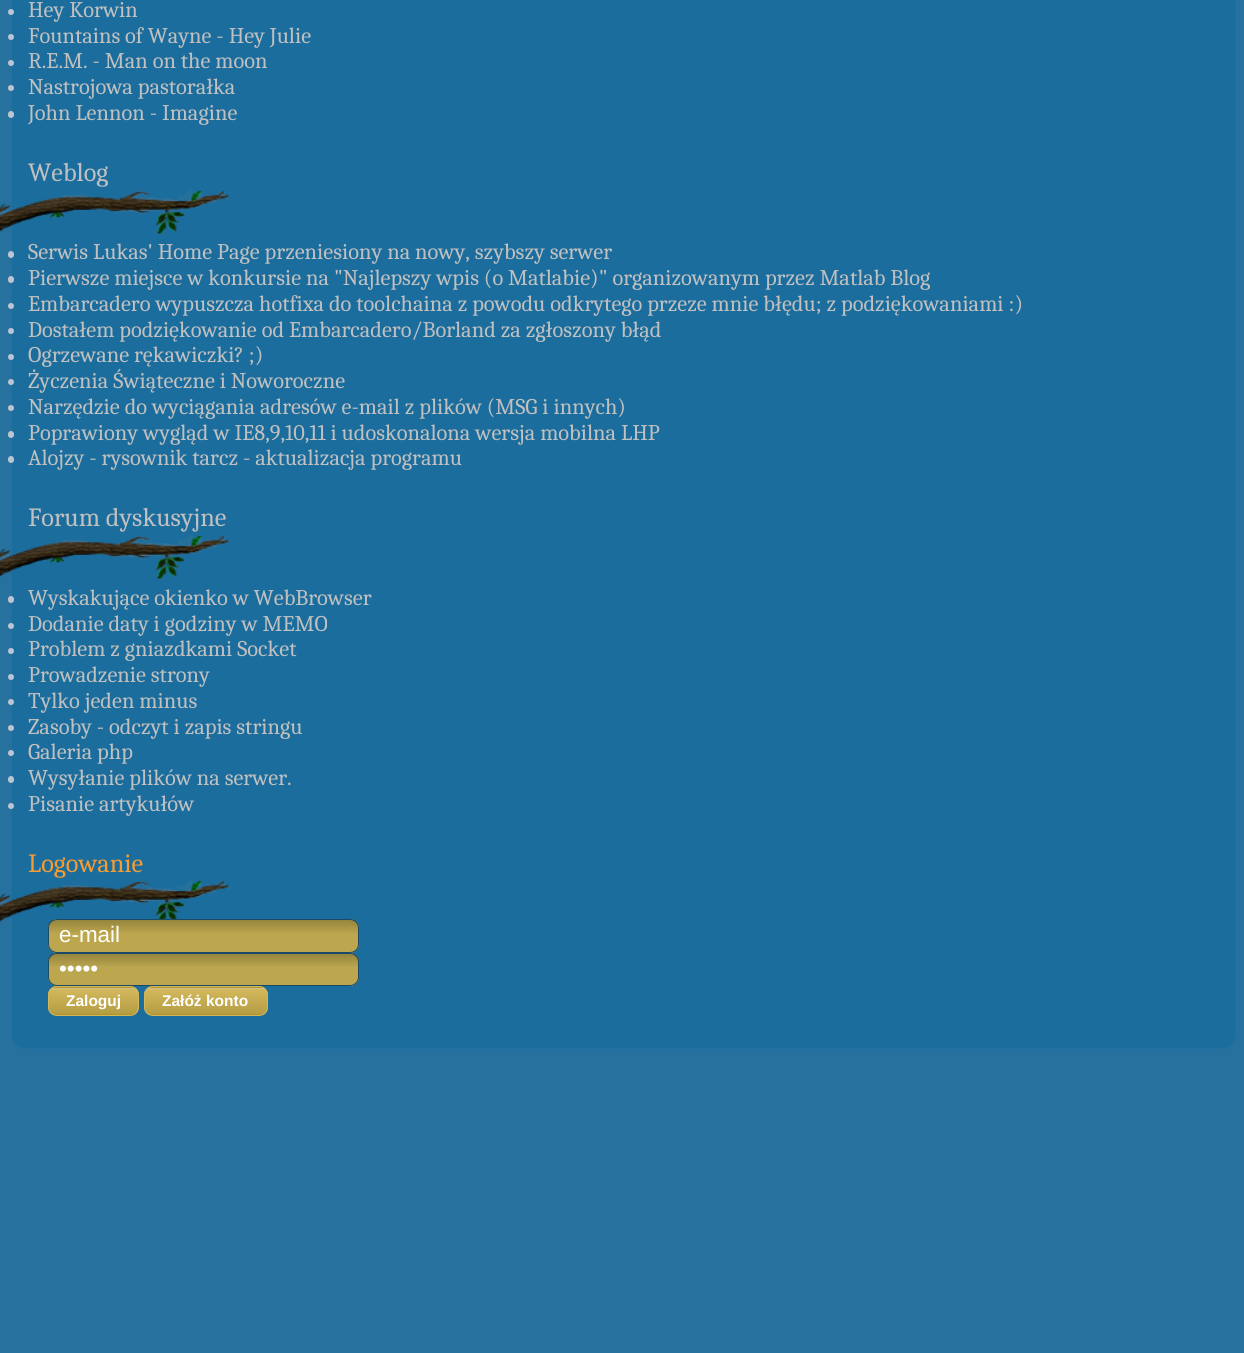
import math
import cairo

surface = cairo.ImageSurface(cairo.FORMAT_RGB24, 1244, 1353)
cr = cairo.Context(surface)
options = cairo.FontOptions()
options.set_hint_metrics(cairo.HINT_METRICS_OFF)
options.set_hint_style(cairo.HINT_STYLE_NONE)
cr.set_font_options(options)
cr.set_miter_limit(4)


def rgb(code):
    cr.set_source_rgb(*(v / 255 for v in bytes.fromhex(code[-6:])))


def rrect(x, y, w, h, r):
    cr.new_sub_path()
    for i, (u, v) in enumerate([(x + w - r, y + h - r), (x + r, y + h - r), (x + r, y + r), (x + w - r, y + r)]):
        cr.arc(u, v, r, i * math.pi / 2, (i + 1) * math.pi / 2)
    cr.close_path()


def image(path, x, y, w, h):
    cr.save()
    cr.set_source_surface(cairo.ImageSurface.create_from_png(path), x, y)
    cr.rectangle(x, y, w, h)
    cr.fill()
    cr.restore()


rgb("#26719d")
cr.paint()
rgb("#1b6d9d")
rrect(11.5, -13.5, 1224, 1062, 12.5)
cr.fill_preserve()
rgb("#1f70a4")
cr.set_line_width(1)
cr.stroke()
rgb("#bcc5d3")
cr.arc(11, 12, 3, 0, 2 * math.pi)
cr.fill()
cr.arc(11, 37, 3, 0, 2 * math.pi)
cr.fill()
cr.arc(11, 63, 3, 0, 2 * math.pi)
cr.fill()
cr.arc(11, 88, 3, 0, 2 * math.pi)
cr.fill()
rrect(8, 111, 6, 7, 3)
cr.fill()
image("img/1.png", 0, 190, 229, 59)
rrect(8, 251, 6, 7, 3)
cr.fill()
rrect(8, 276, 6, 7, 3)
cr.fill()
cr.arc(11, 306, 3, 0, 2 * math.pi)
cr.fill()
cr.arc(11, 331, 3, 0, 2 * math.pi)
cr.fill()
cr.arc(11, 357, 3, 0, 2 * math.pi)
cr.fill()
cr.arc(11, 382, 3, 0, 2 * math.pi)
cr.fill()
cr.arc(11, 408, 3, 0, 2 * math.pi)
cr.fill()
rrect(8, 431, 6, 7, 3)
cr.fill()
rrect(8, 456, 6, 7, 3)
cr.fill()
image("img/1.png", 0, 535, 229, 59)
rrect(8, 596, 6, 7, 3)
cr.fill()
cr.arc(11, 626, 3, 0, 2 * math.pi)
cr.fill()
cr.arc(11, 651, 3, 0, 2 * math.pi)
cr.fill()
cr.arc(11, 677, 3, 0, 2 * math.pi)
cr.fill()
cr.arc(11, 702, 3, 0, 2 * math.pi)
cr.fill()
cr.arc(11, 728, 3, 0, 2 * math.pi)
cr.fill()
cr.arc(11, 753, 3, 0, 2 * math.pi)
cr.fill()
rrect(8, 776, 6, 7, 3)
cr.fill()
cr.arc(11, 806, 3, 0, 2 * math.pi)
cr.fill()
image("img/2.png", 0, 880, 229, 43)
rgb("#bca74e")
rrect(48, 919, 311, 34, 9)
cr.fill()
image("img/3.png", 47, 919, 312, 14)
rrect(48.5, 919.5, 310, 33, 8.5)
rgb("#1a4a68")
cr.stroke()
rgb("#bca74e")
rrect(48, 953, 311, 33, 9)
cr.fill()
image("img/4.png", 48, 953, 311, 13)
rrect(48.5, 953.5, 310, 32, 8.5)
rgb("#1a4a68")
cr.stroke()
cr.save()
rrect(48, 986, 91, 30, 9)
cr.clip()
gradient = cairo.LinearGradient(93, 960, 93, 988)
gradient.add_color_stop_rgba(0, 0.808, 0.753, 0.573, 1)
gradient.add_color_stop_rgba(0.07, 0.827, 0.718, 0.357, 1)
gradient.add_color_stop_rgba(0.94, 0.71, 0.62, 0.267, 1)
gradient.add_color_stop_rgba(1, 0.686, 0.565, 0.122, 1)
cr.set_source(gradient)
cr.rectangle(48, 986, 91, 2)
cr.fill()
gradient = cairo.LinearGradient(93, 988, 93, 1015)
gradient.add_color_stop_rgba(0, 0.808, 0.753, 0.573, 1)
gradient.add_color_stop_rgba(0.07, 0.827, 0.718, 0.357, 1)
gradient.add_color_stop_rgba(0.94, 0.71, 0.62, 0.267, 1)
gradient.add_color_stop_rgba(1, 0.686, 0.565, 0.122, 1)
cr.set_source(gradient)
cr.rectangle(48, 988, 91, 27)
cr.fill()
cr.restore()
rrect(48.5, 986.5, 90, 29, 8.5)
rgb("#d3b75b")
cr.stroke()
cr.save()
rrect(144, 986, 124, 30, 9)
cr.clip()
gradient = cairo.LinearGradient(206, 960, 206, 988)
gradient.add_color_stop_rgba(0, 0.808, 0.753, 0.573, 1)
gradient.add_color_stop_rgba(0.07, 0.827, 0.718, 0.357, 1)
gradient.add_color_stop_rgba(0.94, 0.71, 0.62, 0.267, 1)
gradient.add_color_stop_rgba(1, 0.686, 0.565, 0.122, 1)
cr.set_source(gradient)
cr.rectangle(144, 986, 124, 2)
cr.fill()
gradient = cairo.LinearGradient(206, 988, 206, 1015)
gradient.add_color_stop_rgba(0, 0.808, 0.753, 0.573, 1)
gradient.add_color_stop_rgba(0.07, 0.827, 0.718, 0.357, 1)
gradient.add_color_stop_rgba(0.94, 0.71, 0.62, 0.267, 1)
gradient.add_color_stop_rgba(1, 0.686, 0.565, 0.122, 1)
cr.set_source(gradient)
cr.rectangle(144, 988, 124, 27)
cr.fill()
cr.restore()
rrect(144.5, 986.5, 123, 29, 8.5)
cr.stroke()
cr.select_font_face("Caladea")
cr.set_font_size(22.4)
rgb("#c0c0c0")
for x, y, s in [
    (28, 17, "Hey Korwin"),
    (28, 43, "Fountains of Wayne - Hey Julie"),
    (28, 68, "R.E.M. - Man on the moon"),
    (28, 94, "Nastrojowa pastorałka"),
    (28, 120, "John Lennon - Imagine"),
]:
    cr.move_to(x, y)
    cr.show_text(s)
cr.set_font_size(26.25)
cr.move_to(28, 181)
cr.show_text("Weblog")
cr.set_font_size(22.4)
for x, y, s in [
    (28, 259, "Serwis Lukas' Home Page przeniesiony na nowy, szybszy serwer"),
    (28, 285, "Pierwsze miejsce w konkursie na \"Najlepszy wpis (o Matlabie)\" organizowanym przez Matlab Blog"),
    (28, 311, "Embarcadero wypuszcza hotfixa do toolchaina z powodu odkrytego przeze mnie błędu; z podziękowaniami :)"),
    (28, 337, "Dostałem podziękowanie od Embarcadero/Borland za zgłoszony błąd"),
    (28, 362, "Ogrzewane rękawiczki? ;)"),
    (28, 388, "Życzenia Świąteczne i Noworoczne"),
    (28, 414, "Narzędzie do wyciągania adresów e-mail z plików (MSG i innych)"),
    (28, 440, "Poprawiony wygląd w IE8,9,10,11 i udoskonalona wersja mobilna LHP"),
    (28, 465, "Alojzy - rysownik tarcz - aktualizacja programu"),
]:
    cr.move_to(x, y)
    cr.show_text(s)
cr.set_font_size(26.25)
cr.move_to(28, 526)
cr.show_text("Forum dyskusyjne")
cr.set_font_size(22.4)
for x, y, s in [
    (28, 605, "Wyskakujące okienko w WebBrowser"),
    (28, 631, "Dodanie daty i godziny w MEMO"),
    (28, 656, "Problem z gniazdkami Socket"),
    (28, 682, "Prowadzenie strony"),
    (28, 708, "Tylko jeden minus"),
    (28, 734, "Zasoby - odczyt i zapis stringu"),
    (28, 759, "Galeria php"),
    (28, 785, "Wysyłanie plików na serwer."),
    (28, 811, "Pisanie artykułów"),
]:
    cr.move_to(x, y)
    cr.show_text(s)
cr.set_font_size(26.25)
rgb("#f69d31")
cr.move_to(28, 872)
cr.show_text("Logowanie")
cr.select_font_face("Liberation Sans")
cr.set_font_size(22.4)
rgb("#ffffff")
cr.move_to(59, 942)
cr.show_text("e-mail")
cr.move_to(59, 976)
cr.show_text("•••••")
cr.select_font_face("Liberation Sans", cairo.FONT_SLANT_NORMAL, cairo.FONT_WEIGHT_BOLD)
cr.set_font_size(15.5)
cr.move_to(66, 1006)
cr.show_text("Zaloguj")
cr.move_to(162, 1006)
cr.show_text("Załóż konto")
surface.write_to_png("page.png")
